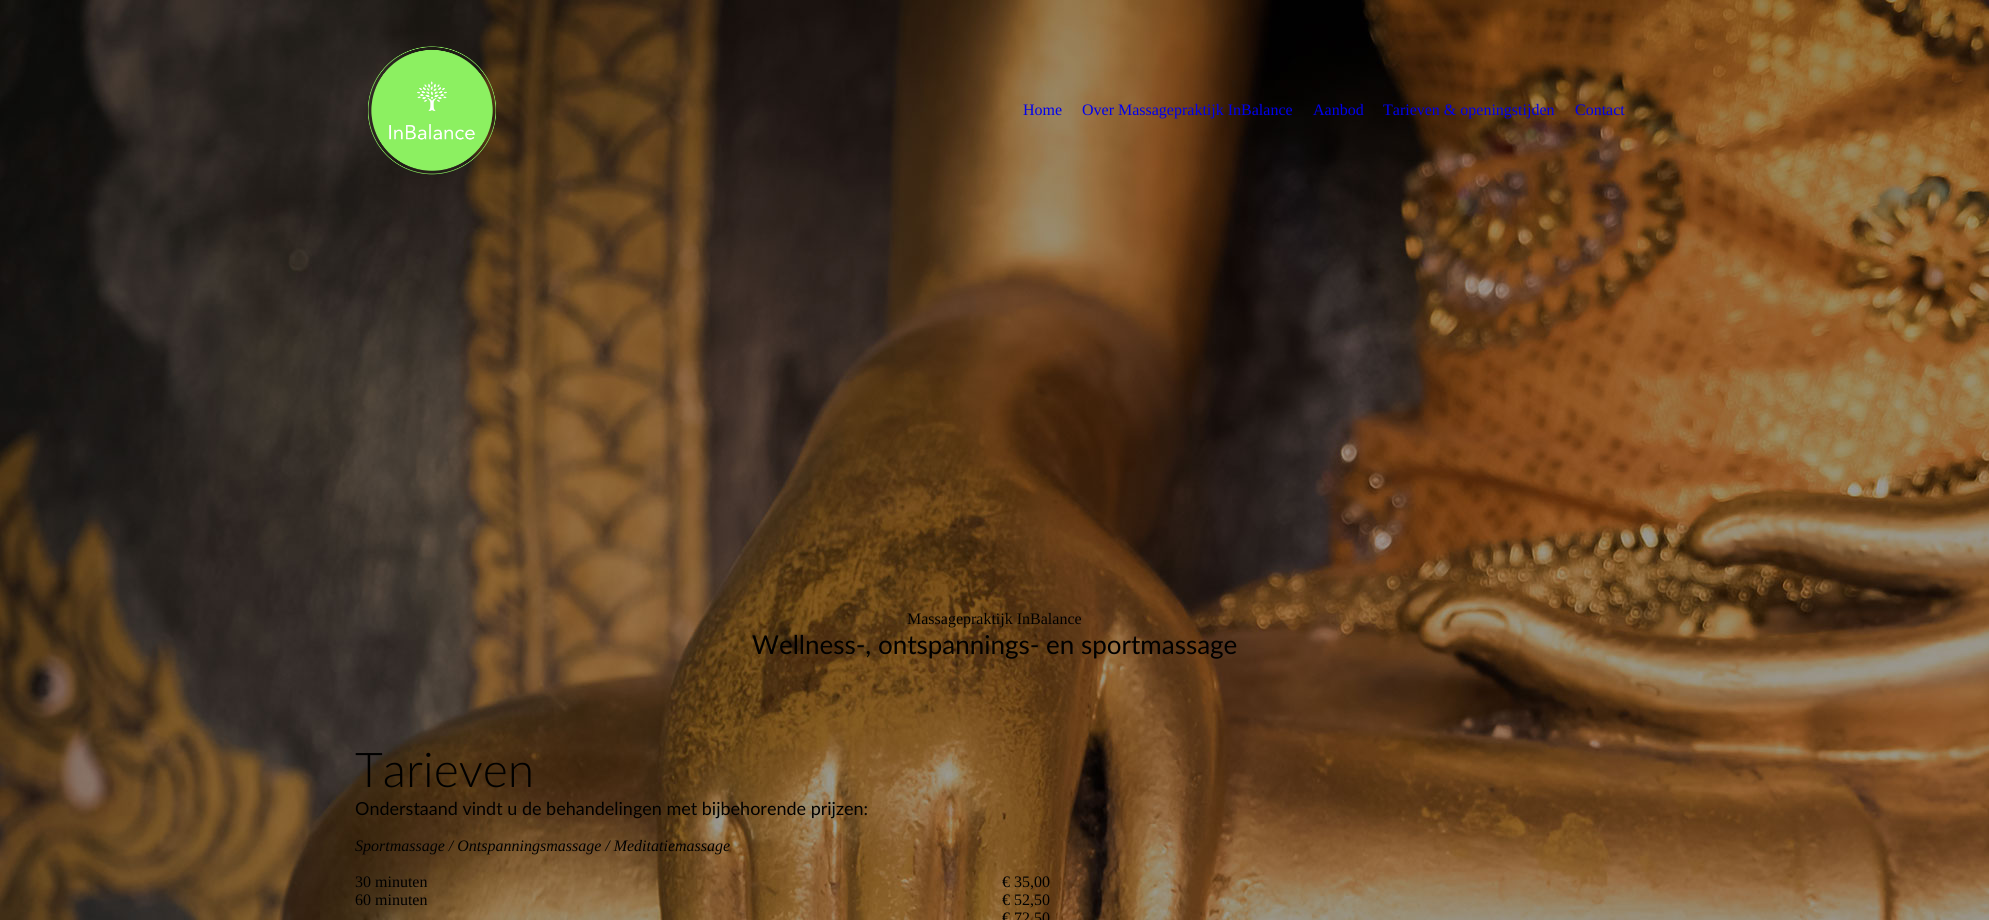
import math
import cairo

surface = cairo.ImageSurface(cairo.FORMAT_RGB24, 1989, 920)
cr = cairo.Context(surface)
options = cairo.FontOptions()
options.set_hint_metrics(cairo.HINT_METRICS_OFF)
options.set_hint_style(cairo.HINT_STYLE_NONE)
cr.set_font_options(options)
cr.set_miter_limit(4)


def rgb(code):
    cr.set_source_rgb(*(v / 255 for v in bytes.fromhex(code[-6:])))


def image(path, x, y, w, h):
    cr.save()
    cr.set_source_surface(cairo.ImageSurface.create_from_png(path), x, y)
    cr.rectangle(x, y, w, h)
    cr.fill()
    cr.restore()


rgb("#ffffff")
cr.paint()
image("img/1.png", 0, 0, 1989, 920)
image("img/2.png", 368, 46, 128, 129)
cr.select_font_face("Liberation Serif")
cr.set_font_size(16)
rgb("#0000ee")
for x, y, s in [
    (1023, 115, "Home"),
    (1082, 115, "Over Massagepraktijk InBalance"),
    (1313, 115, "Aanbod"),
    (1383, 115, "Tarieven & openingstijden"),
    (1575, 115, "Contact"),
]:
    cr.move_to(x, y)
    cr.show_text(s)
rgb("#000000")
cr.move_to(907, 624)
cr.show_text("Massagepraktijk InBalance")
cr.select_font_face("Lato")
cr.set_font_size(26)
cr.move_to(752, 654)
cr.show_text("Wellness-, ontspannings- en sportmassage")
cr.select_font_face("Lato Light")
cr.set_font_size(48)
cr.move_to(355, 787)
cr.show_text("Tarieven")
cr.select_font_face("Lato")
cr.set_font_size(18)
cr.move_to(355, 815)
cr.show_text("Onderstaand vindt u de behandelingen met bijbehorende prijzen:")
cr.select_font_face("Liberation Serif", cairo.FONT_SLANT_ITALIC)
cr.set_font_size(16)
cr.move_to(355, 851)
cr.show_text("Sportmassage / Ontspanningsmassage / Meditatiemassage")
cr.select_font_face("Liberation Serif")
for x, y, s in [
    (355, 887, "30 minuten"),
    (1002, 887, "€ 35,00"),
    (355, 905, "60 minuten"),
    (1002, 905, "€ 52,50"),
    (1002, 923, "€ 72,50"),
]:
    cr.move_to(x, y)
    cr.show_text(s)
surface.write_to_png("page.png")
